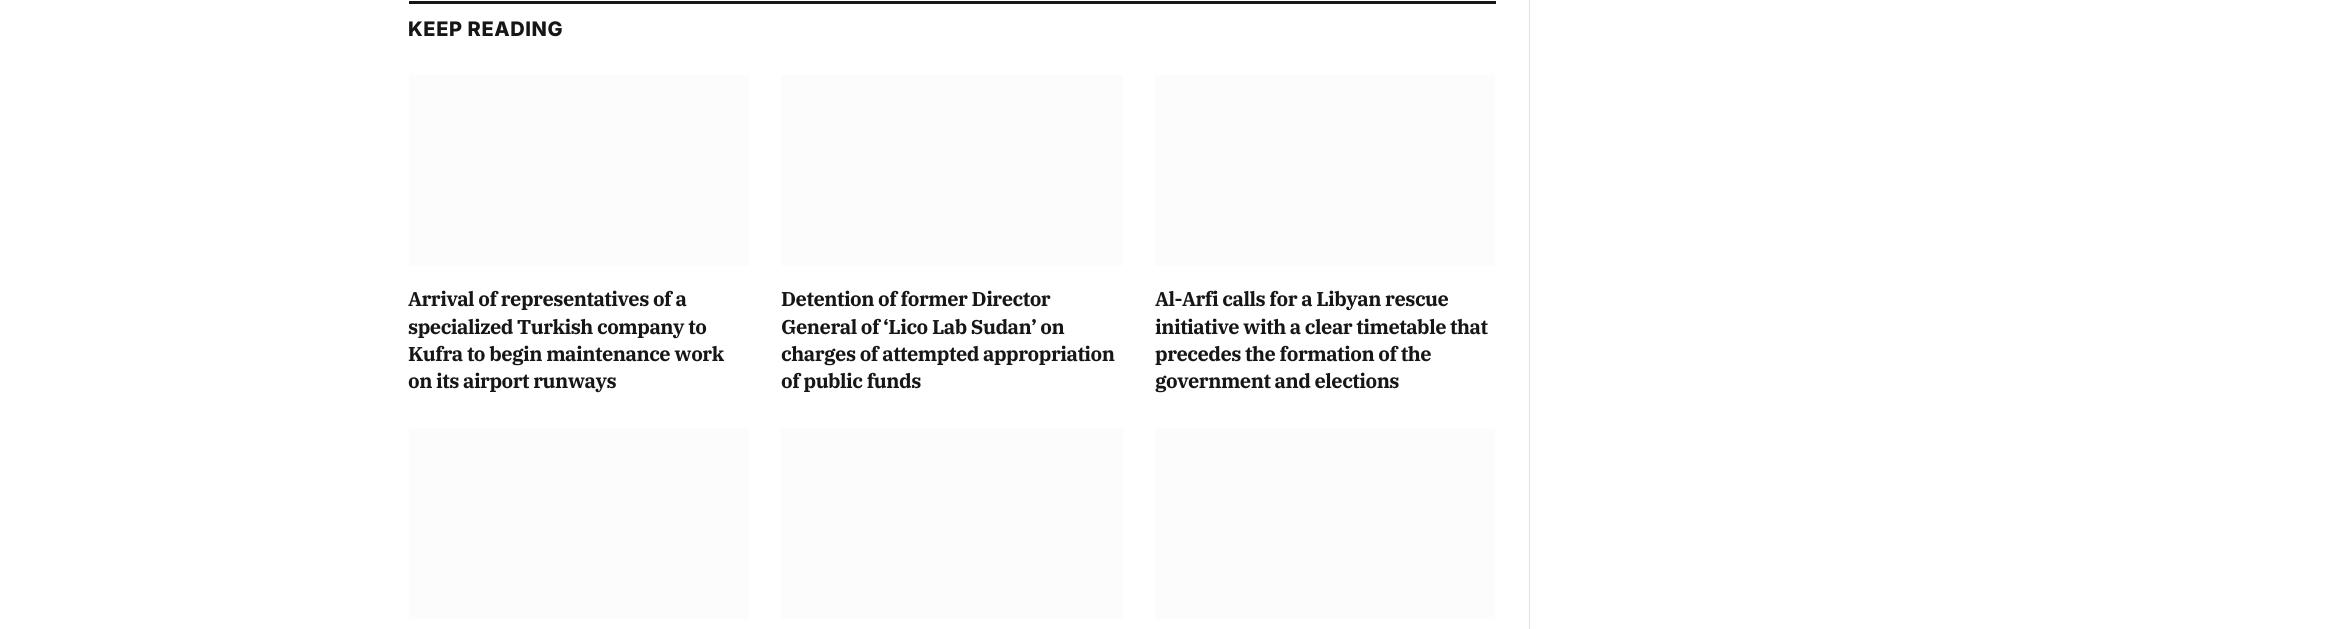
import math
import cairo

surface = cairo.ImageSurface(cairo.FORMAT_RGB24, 2341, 629)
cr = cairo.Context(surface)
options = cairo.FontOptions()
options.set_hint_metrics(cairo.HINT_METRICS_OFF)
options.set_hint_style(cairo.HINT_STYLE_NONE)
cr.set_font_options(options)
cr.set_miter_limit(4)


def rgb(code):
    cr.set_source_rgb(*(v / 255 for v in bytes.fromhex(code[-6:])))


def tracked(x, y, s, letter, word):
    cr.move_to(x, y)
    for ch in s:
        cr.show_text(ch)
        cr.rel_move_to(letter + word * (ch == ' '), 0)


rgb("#ffffff")
cr.paint()
for x, y, w, h, color in [
    (409, 1, 1087, 3, "#161616"),
    (409, 75, 340, 191, "#fcfcfc"),
    (781, 75, 342, 191, "#fcfcfc"),
    (1155, 75, 340, 191, "#fcfcfc"),
    (409, 428, 340, 191, "#fcfcfc"),
    (781, 428, 342, 191, "#fcfcfc"),
    (1155, 428, 340, 191, "#fcfcfc"),
    (1529, 0, 1, 629, "#e2e2e2"),
]:
    rgb(color)
    cr.rectangle(x, y, w, h)
    cr.fill()
cr.select_font_face("Inter ExtraBold")
cr.set_font_size(20)
rgb("#161616")
tracked(408, 36, "KEEP READING", 0.6, 0)
cr.select_font_face("IBM Plex Serif", cairo.FONT_SLANT_NORMAL, cairo.FONT_WEIGHT_BOLD)
for x, y, s in [
    (408, 306, "Arrival of representatives of a"),
    (408, 334, "specialized Turkish company to"),
    (408, 361, "Kufra to begin maintenance work"),
    (408, 388, "on its airport runways"),
    (781, 306, "Detention of former Director"),
    (781, 334, "General of ‘Lico Lab Sudan’ on"),
    (781, 361, "charges of attempted appropriation"),
    (781, 388, "of public funds"),
    (1155, 306, "Al-Arfi calls for a Libyan rescue"),
    (1155, 334, "initiative with a clear timetable that"),
    (1155, 361, "precedes the formation of the"),
    (1155, 388, "government and elections"),
]:
    tracked(x, y, s, -0.5, 0)
surface.write_to_png("page.png")
